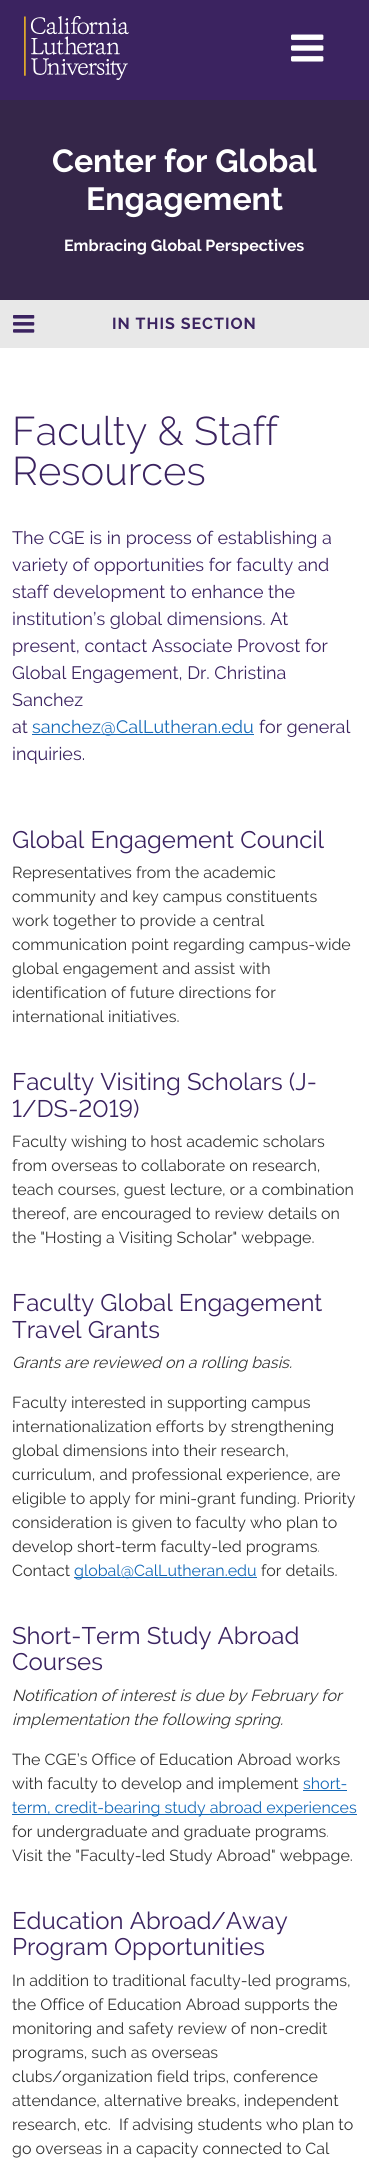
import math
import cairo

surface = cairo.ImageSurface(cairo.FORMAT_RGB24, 369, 2171)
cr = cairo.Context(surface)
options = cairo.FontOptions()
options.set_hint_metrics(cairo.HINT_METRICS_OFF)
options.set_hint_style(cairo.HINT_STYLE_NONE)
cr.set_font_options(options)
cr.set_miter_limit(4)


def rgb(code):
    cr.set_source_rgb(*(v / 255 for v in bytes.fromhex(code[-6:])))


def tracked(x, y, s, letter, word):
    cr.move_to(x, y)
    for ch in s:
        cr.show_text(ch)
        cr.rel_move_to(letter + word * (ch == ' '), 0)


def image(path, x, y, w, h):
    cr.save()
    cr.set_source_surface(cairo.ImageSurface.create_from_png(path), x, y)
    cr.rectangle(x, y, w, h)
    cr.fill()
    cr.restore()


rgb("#ffffff")
cr.paint()
rgb("#3b2360")
cr.rectangle(0, 0, 369, 100)
cr.fill()
image("img/1.png", 24, 16, 105, 64)
image("img/2.png", 291, 34, 33, 28)
rgb("#352649")
cr.rectangle(0, 100, 369, 200)
cr.fill()
rgb("#e8e8e8")
cr.rectangle(0, 300, 369, 48)
cr.fill()
image("img/3.png", 13, 315, 22, 18)
for x, y, w, h, color in [
    (32, 734, 222, 1, "#1469b8"),
    (74, 1577, 183, 1, "#1469b8"),
    (303, 1790, 44, 1, "#1469b8"),
    (12, 1814, 345, 1, "#1469b8"),
]:
    rgb(color)
    cr.rectangle(x, y, w, h)
    cr.fill()
cr.select_font_face("Raleway", cairo.FONT_SLANT_NORMAL, cairo.FONT_WEIGHT_BOLD)
cr.set_font_size(32)
rgb("#ffffff")
cr.move_to(52, 172)
cr.show_text("Center for Global")
cr.move_to(86, 210)
cr.show_text("Engagement")
cr.set_font_size(16)
cr.move_to(64, 251)
cr.show_text("Embracing Global Perspectives")
rgb("#3b2360")
tracked(112, 329, "IN THIS SECTION", 1, 0)
cr.select_font_face("Raleway Light")
cr.set_font_size(40)
cr.move_to(12, 445)
cr.show_text("Faculty & Staff")
cr.move_to(12, 485)
cr.show_text("Resources")
cr.select_font_face("Raleway")
cr.set_font_size(18)
for x, y, s in [
    (12, 544, "The CGE is in process of establishing a"),
    (12, 571, "variety of opportunities for faculty and"),
    (12, 598, "staff development to enhance the"),
    (12, 625, "institution’s global dimensions. At"),
    (12, 652, "present, contact Associate Provost for"),
    (12, 679, "Global Engagement, Dr. Christina"),
    (12, 706, "Sanchez"),
    (12, 733, "at"),
]:
    cr.move_to(x, y)
    cr.show_text(s)
rgb("#1469b8")
cr.move_to(32, 733)
cr.show_text("sanchez@CalLutheran.edu")
rgb("#3b2360")
cr.move_to(259, 733)
cr.show_text("for general")
cr.move_to(12, 760)
cr.show_text("inquiries.")
cr.set_font_size(24)
cr.move_to(12, 848)
cr.show_text("Global Engagement Council")
cr.set_font_size(16)
rgb("#333333")
for x, y, s in [
    (12, 878, "Representatives from the academic"),
    (12, 902, "community and key campus constituents"),
    (12, 926, "work together to provide a central"),
    (12, 950, "communication point regarding campus-wide"),
    (12, 974, "global engagement and assist with"),
    (12, 998, "identification of future directions for"),
    (12, 1022, "international initiatives."),
]:
    cr.move_to(x, y)
    cr.show_text(s)
cr.set_font_size(24)
rgb("#3b2360")
cr.move_to(12, 1090)
cr.show_text("Faculty Visiting Scholars (J-")
cr.move_to(12, 1117)
cr.show_text("1/DS-2019)")
cr.set_font_size(16)
rgb("#333333")
for x, y, s in [
    (12, 1147, "Faculty wishing to host academic scholars"),
    (12, 1171, "from overseas to collaborate on research,"),
    (12, 1195, "teach courses, guest lecture, or a combination"),
    (12, 1219, "thereof, are encouraged to review details on"),
    (12, 1243, "the \"Hosting a Visiting Scholar\" webpage."),
]:
    cr.move_to(x, y)
    cr.show_text(s)
cr.set_font_size(24)
rgb("#3b2360")
cr.move_to(12, 1311)
cr.show_text("Faculty Global Engagement")
cr.move_to(12, 1338)
cr.show_text("Travel Grants")
cr.select_font_face("Raleway", cairo.FONT_SLANT_ITALIC)
cr.set_font_size(16)
rgb("#333333")
cr.move_to(12, 1368)
cr.show_text("Grants are reviewed on a rolling basis.")
cr.select_font_face("Raleway")
for x, y, s in [
    (12, 1408, "Faculty interested in supporting campus"),
    (12, 1432, "internationalization efforts by strengthening"),
    (12, 1456, "global dimensions into their research,"),
    (12, 1480, "curriculum, and professional experience, are"),
    (12, 1504, "eligible to apply for mini-grant funding. Priority"),
    (12, 1528, "consideration is given to faculty who plan to"),
    (12, 1552, "develop short-term faculty-led programs."),
    (12, 1576, "Contact"),
]:
    cr.move_to(x, y)
    cr.show_text(s)
rgb("#1469b8")
cr.move_to(74, 1576)
cr.show_text("global@CalLutheran.edu")
rgb("#333333")
cr.move_to(261, 1576)
cr.show_text("for details.")
cr.set_font_size(24)
rgb("#3b2360")
cr.move_to(12, 1644)
cr.show_text("Short-Term Study Abroad")
cr.move_to(12, 1670)
cr.show_text("Courses")
cr.select_font_face("Raleway", cairo.FONT_SLANT_ITALIC)
cr.set_font_size(16)
rgb("#333333")
cr.move_to(12, 1701)
cr.show_text("Notification of interest is due by February for")
cr.move_to(12, 1725)
cr.show_text("implementation the following spring.")
cr.select_font_face("Raleway")
cr.move_to(12, 1765)
cr.show_text("The CGE’s Office of Education Abroad works")
cr.move_to(12, 1789)
cr.show_text("with faculty to develop and implement")
rgb("#1469b8")
cr.move_to(303, 1789)
cr.show_text("short-")
cr.move_to(12, 1813)
cr.show_text("term, credit-bearing study abroad experiences")
rgb("#333333")
cr.move_to(12, 1837)
cr.show_text("for undergraduate and graduate programs.")
cr.move_to(12, 1861)
cr.show_text("Visit the \"Faculty-led Study Abroad\" webpage.")
cr.set_font_size(24)
rgb("#3b2360")
cr.move_to(12, 1929)
cr.show_text("Education Abroad/Away")
cr.move_to(12, 1955)
cr.show_text("Program Opportunities")
cr.set_font_size(16)
rgb("#333333")
for x, y, s in [
    (12, 1986, "In addition to traditional faculty-led programs,"),
    (12, 2010, "the Office of Education Abroad supports the"),
    (12, 2034, "monitoring and safety review of non-credit"),
    (12, 2058, "programs, such as overseas"),
    (12, 2082, "clubs/organization field trips, conference"),
    (12, 2106, "attendance, alternative breaks, independent"),
    (12, 2130, "research, etc.  If advising students who plan to"),
    (12, 2154, "go overseas in a capacity connected to Cal"),
]:
    cr.move_to(x, y)
    cr.show_text(s)
surface.write_to_png("page.png")
